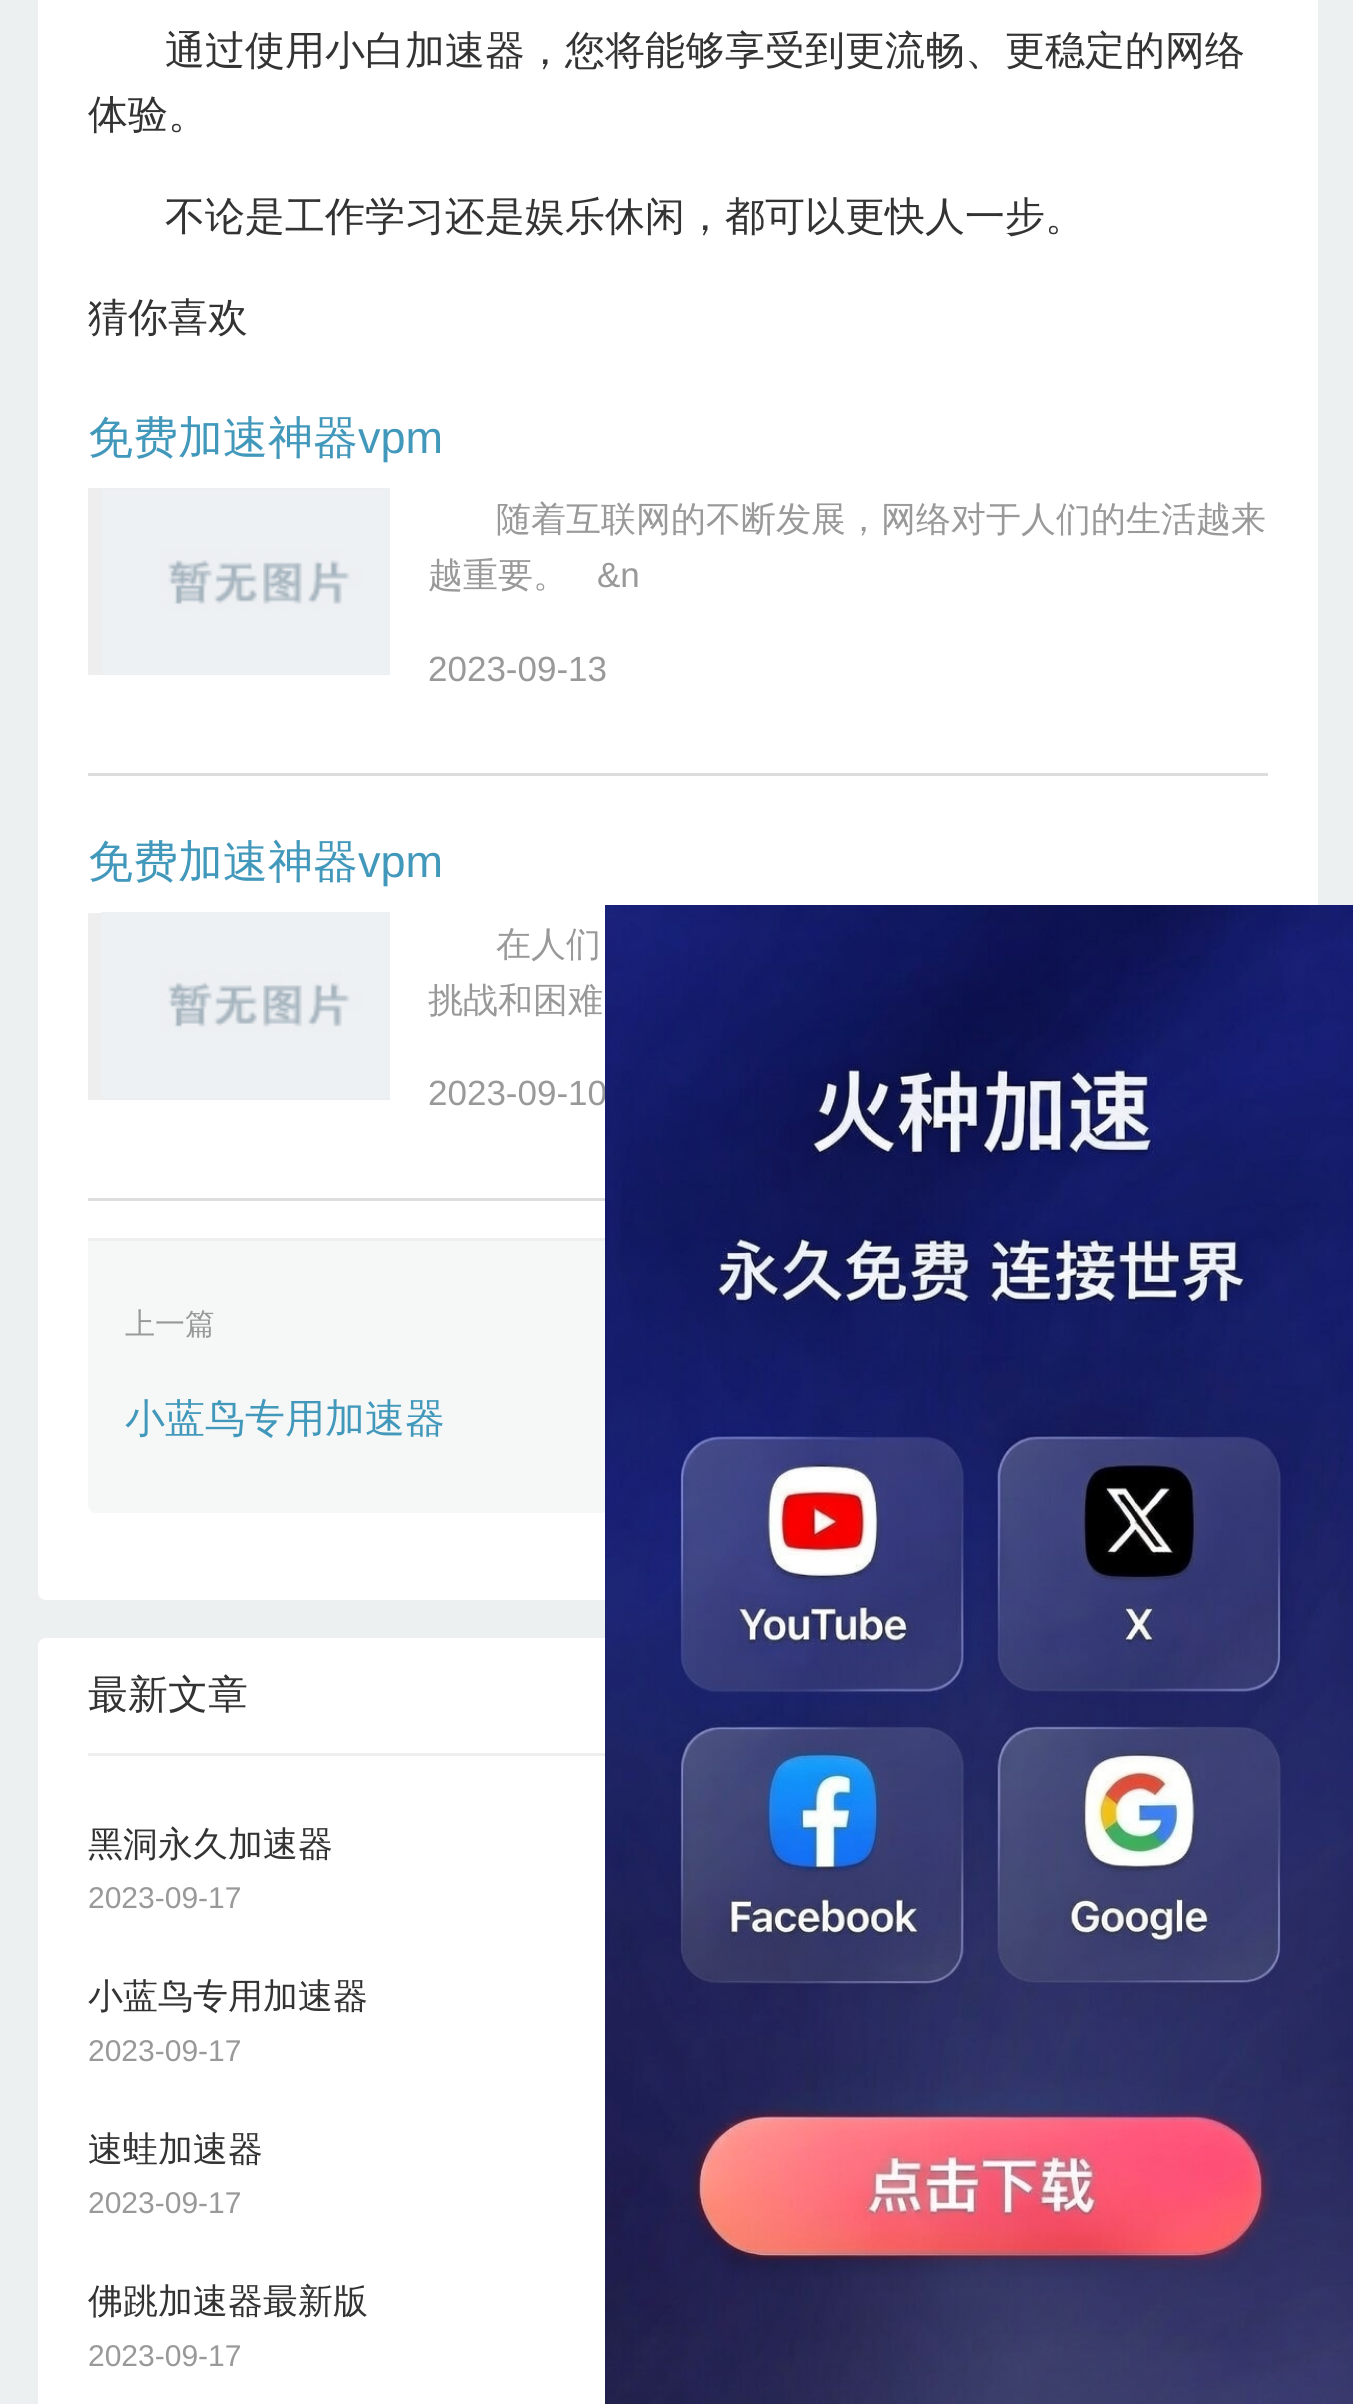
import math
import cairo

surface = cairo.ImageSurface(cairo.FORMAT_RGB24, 1353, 2404)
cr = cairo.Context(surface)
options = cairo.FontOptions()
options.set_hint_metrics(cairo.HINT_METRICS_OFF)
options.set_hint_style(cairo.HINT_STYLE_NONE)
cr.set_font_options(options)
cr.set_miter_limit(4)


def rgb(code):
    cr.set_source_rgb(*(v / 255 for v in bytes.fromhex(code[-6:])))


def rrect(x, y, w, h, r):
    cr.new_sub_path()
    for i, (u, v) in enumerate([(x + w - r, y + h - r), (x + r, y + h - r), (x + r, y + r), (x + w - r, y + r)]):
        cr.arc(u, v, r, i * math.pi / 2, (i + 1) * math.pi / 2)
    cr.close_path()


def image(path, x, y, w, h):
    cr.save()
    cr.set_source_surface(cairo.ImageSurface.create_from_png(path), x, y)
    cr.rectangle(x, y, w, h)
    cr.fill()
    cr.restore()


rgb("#ecf0f1")
cr.paint()
rgb("#ffffff")
rrect(38, -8, 1280, 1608, 8)
cr.fill()
rgb("#dddddd")
cr.rectangle(88, 773, 1180, 3)
cr.fill()
rgb("#eeeeee")
cr.rectangle(88, 488, 302, 187)
cr.fill()
image("img/1.png", 102, 489, 288, 185)
rgb("#dddddd")
cr.rectangle(88, 1198, 517, 3)
cr.fill()
rgb("#eeeeee")
cr.rectangle(88, 913, 302, 187)
cr.fill()
image("img/2.png", 101, 912, 289, 186)
rgb("#f6f8f8")
cr.new_path()
cr.move_to(88, 1238)
cr.line_to(1268, 1238)
cr.line_to(1268, 1505)
cr.curve_to(1268, 1509.5, 1264.5, 1513, 1260, 1513)
cr.line_to(96, 1513)
cr.curve_to(91.5, 1513, 88, 1509.5, 88, 1505)
cr.close_path()
cr.fill()
rgb("#efefef")
cr.rectangle(88, 1238, 517, 3)
cr.fill()
rgb("#ffffff")
rrect(38, 1638, 1280, 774, 8)
cr.fill()
rgb("#efefef")
cr.rectangle(88, 1753, 517, 3)
cr.fill()
cr.select_font_face("WenQuanYi Zen Hei Medium")
cr.set_font_size(40)
rgb("#333333")
for x, y, s in [
    (165, 64, "通过使用小白加速器，您将能够享受到更流畅、更稳定的网络"),
    (88, 128, "体验。"),
    (165, 230, "不论是工作学习还是娱乐休闲，都可以更快人一步。"),
    (88, 331, "猜你喜欢"),
]:
    cr.move_to(x, y)
    cr.show_text(s)
cr.set_font_size(45)
rgb("#4298ba")
cr.move_to(88, 453)
cr.show_text("免费加速神器")
cr.select_font_face("Liberation Sans")
cr.move_to(358, 453)
cr.show_text("vpm")
cr.select_font_face("WenQuanYi Zen Hei Medium")
cr.set_font_size(35)
rgb("#999999")
cr.move_to(496, 531)
cr.show_text("随着互联网的不断发展，网络对于人们的生活越来")
cr.move_to(428, 587)
cr.show_text("越重要。")
cr.select_font_face("Liberation Sans")
cr.move_to(597, 587)
cr.show_text("&n")
cr.move_to(428, 681)
cr.show_text("2023-09-13")
cr.select_font_face("WenQuanYi Zen Hei Medium")
cr.set_font_size(45)
rgb("#4298ba")
cr.move_to(88, 877)
cr.show_text("免费加速神器")
cr.select_font_face("Liberation Sans")
cr.move_to(358, 877)
cr.show_text("vpm")
cr.select_font_face("WenQuanYi Zen Hei Medium")
cr.set_font_size(35)
rgb("#999999")
cr.move_to(496, 956)
cr.show_text("在人们")
cr.move_to(428, 1012)
cr.show_text("挑战和困难")
cr.select_font_face("Liberation Sans")
cr.move_to(428, 1105)
cr.show_text("2023-09-10")
cr.select_font_face("WenQuanYi Zen Hei Medium")
cr.set_font_size(30)
cr.move_to(125, 1334)
cr.show_text("上一篇")
cr.set_font_size(40)
rgb("#4298ba")
cr.move_to(125, 1432)
cr.show_text("小蓝鸟专用加速器")
rgb("#333333")
cr.move_to(88, 1708)
cr.show_text("最新文章")
cr.set_font_size(35)
cr.move_to(88, 1856)
cr.show_text("黑洞永久加速器")
cr.select_font_face("Liberation Sans")
cr.set_font_size(30)
rgb("#999999")
cr.move_to(88, 1908)
cr.show_text("2023-09-17")
cr.select_font_face("WenQuanYi Zen Hei Medium")
cr.set_font_size(35)
rgb("#333333")
cr.move_to(88, 2008)
cr.show_text("小蓝鸟专用加速器")
cr.select_font_face("Liberation Sans")
cr.set_font_size(30)
rgb("#999999")
cr.move_to(88, 2061)
cr.show_text("2023-09-17")
cr.select_font_face("WenQuanYi Zen Hei Medium")
cr.set_font_size(35)
rgb("#333333")
cr.move_to(88, 2161)
cr.show_text("速蛙加速器")
cr.select_font_face("Liberation Sans")
cr.set_font_size(30)
rgb("#999999")
cr.move_to(88, 2213)
cr.show_text("2023-09-17")
cr.select_font_face("WenQuanYi Zen Hei Medium")
cr.set_font_size(35)
rgb("#333333")
cr.move_to(88, 2313)
cr.show_text("佛跳加速器最新版")
cr.select_font_face("Liberation Sans")
cr.set_font_size(30)
rgb("#999999")
cr.move_to(88, 2366)
cr.show_text("2023-09-17")
image("img/3.png", 605, 905, 748, 1499)
surface.write_to_png("page.png")
